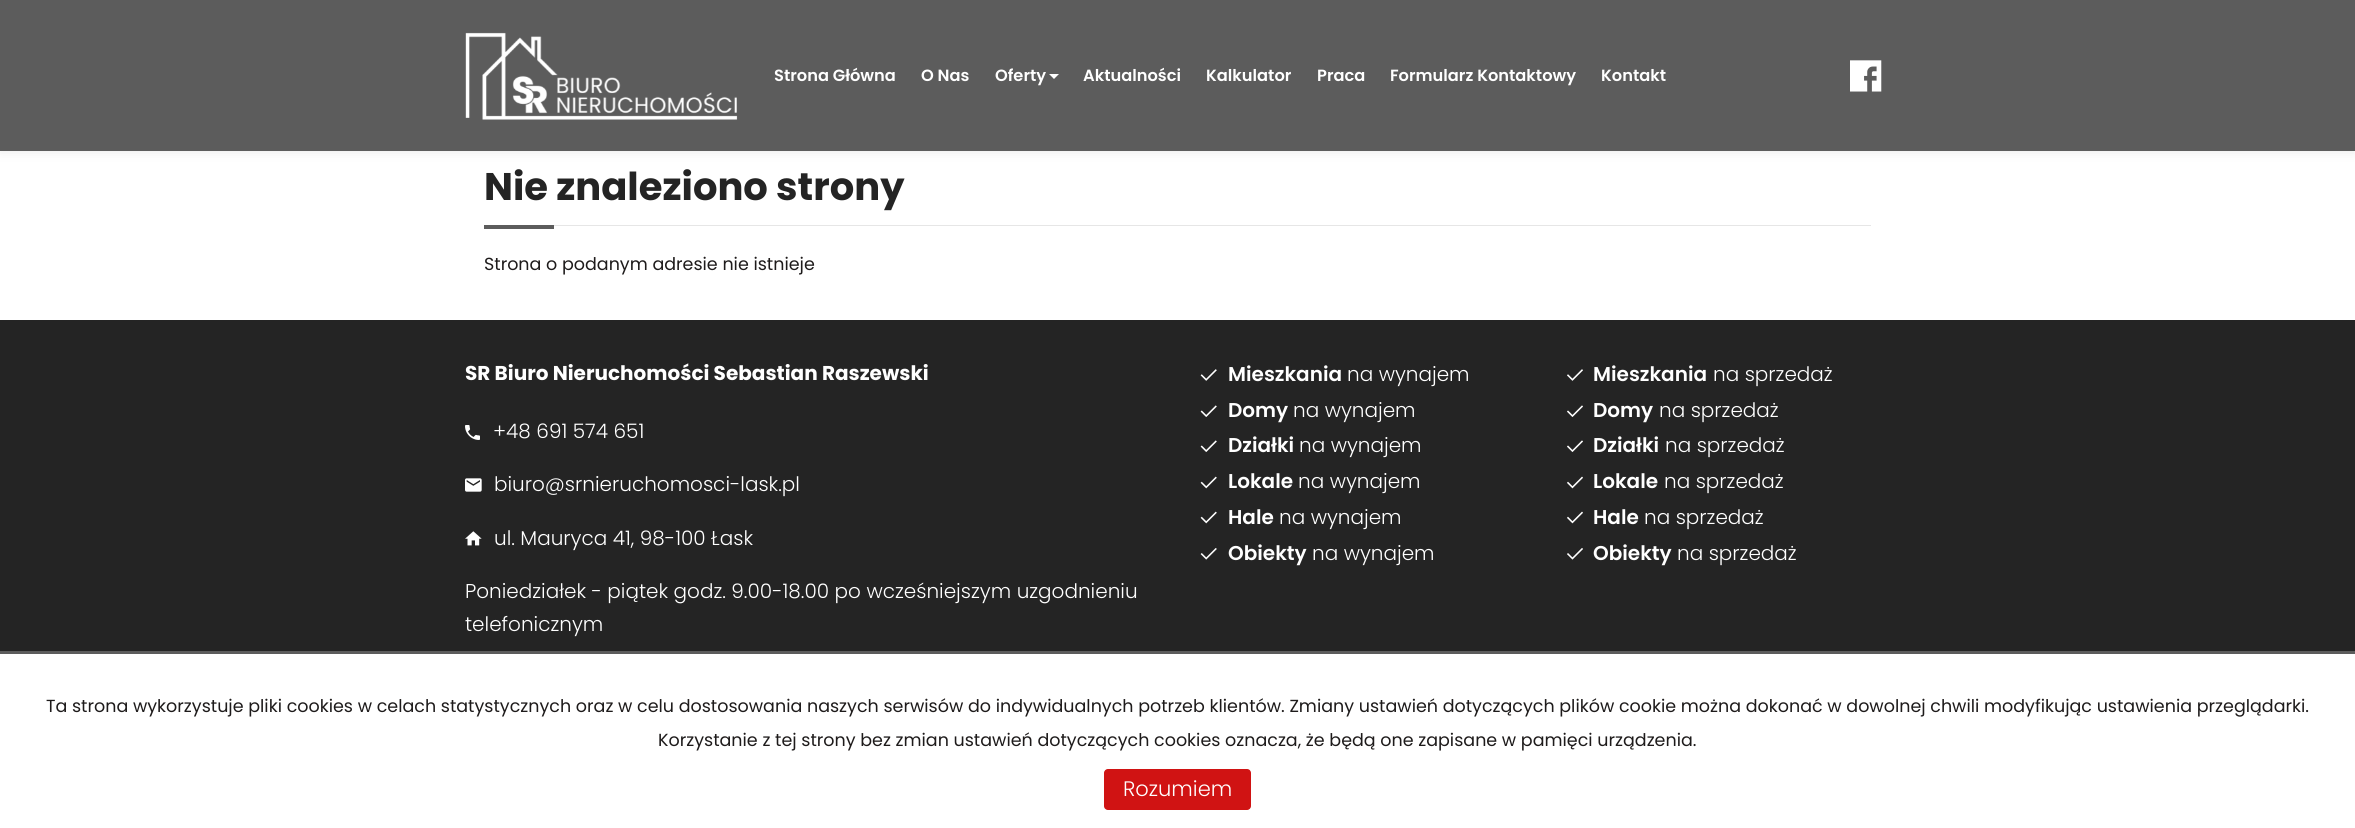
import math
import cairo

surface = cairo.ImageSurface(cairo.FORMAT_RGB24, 2355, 828)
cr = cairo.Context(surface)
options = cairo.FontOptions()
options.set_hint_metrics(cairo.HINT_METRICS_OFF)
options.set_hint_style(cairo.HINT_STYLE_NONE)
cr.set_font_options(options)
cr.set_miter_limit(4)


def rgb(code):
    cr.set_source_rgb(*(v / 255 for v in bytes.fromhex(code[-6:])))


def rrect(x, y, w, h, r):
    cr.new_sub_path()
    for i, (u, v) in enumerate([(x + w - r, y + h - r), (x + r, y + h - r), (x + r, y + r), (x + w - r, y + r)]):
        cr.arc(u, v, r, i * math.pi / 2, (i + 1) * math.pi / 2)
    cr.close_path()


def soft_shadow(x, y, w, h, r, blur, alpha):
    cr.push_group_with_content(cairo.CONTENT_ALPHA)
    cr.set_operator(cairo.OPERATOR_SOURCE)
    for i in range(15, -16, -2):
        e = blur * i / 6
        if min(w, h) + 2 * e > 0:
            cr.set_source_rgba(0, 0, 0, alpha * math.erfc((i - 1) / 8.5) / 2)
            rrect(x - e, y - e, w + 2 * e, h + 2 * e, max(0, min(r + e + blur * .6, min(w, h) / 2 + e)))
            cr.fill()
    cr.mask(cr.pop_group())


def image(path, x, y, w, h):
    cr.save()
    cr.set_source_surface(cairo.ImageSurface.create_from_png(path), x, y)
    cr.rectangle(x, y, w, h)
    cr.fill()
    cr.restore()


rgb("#ffffff")
cr.paint()
rgb("#000000")
soft_shadow(0, 0, 2355, 151, 0, 6, 0.1)
rgb("#5c5c5c")
cr.rectangle(0, 0, 2355, 151)
cr.fill()
image("img/1.png", 465, 32, 273, 88)
rgb("#ffffff")
cr.new_path()
cr.move_to(1049, 74)
cr.line_to(1059, 74)
cr.line_to(1054, 79)
cr.close_path()
cr.fill()
image("img/2.png", 1850, 60, 32, 32)
for x, y, w, h, color in [
    (554, 225, 1317, 1, "#e6e6e6"),
    (484, 225, 70, 4, "#5c5c5c"),
    (0, 320, 2355, 331, "#242424"),
]:
    rgb(color)
    cr.rectangle(x, y, w, h)
    cr.fill()
image("img/3.png", 465, 425, 15, 15)
image("img/4.png", 465, 478, 17, 14)
image("img/5.png", 465, 531, 17, 15)
image("img/6.png", 1200, 369, 17, 12)
image("img/7.png", 1200, 405, 17, 12)
image("img/7.png", 1200, 440, 17, 12)
image("img/8.png", 1200, 476, 17, 13)
image("img/8.png", 1200, 511, 17, 13)
image("img/9.png", 1200, 548, 17, 12)
image("img/10.png", 1567, 369, 16, 12)
image("img/11.png", 1567, 405, 16, 12)
image("img/11.png", 1567, 440, 16, 12)
image("img/12.png", 1567, 476, 16, 13)
image("img/12.png", 1567, 511, 16, 13)
image("img/13.png", 1567, 548, 16, 12)
rgb("#5c5c5c")
cr.rectangle(0, 651, 2355, 3)
cr.fill()
rgb("#d01313")
rrect(1104, 769, 147, 41, 4)
cr.fill()
cr.select_font_face("Poppins SemiBold")
cr.set_font_size(16.25)
rgb("#ffffff")
for x, y, s in [
    (774, 81, "Strona Główna"),
    (921, 81, "O Nas"),
    (995, 81, "Oferty"),
    (1083, 81, "Aktualności"),
    (1206, 81, "Kalkulator"),
    (1317, 81, "Praca"),
    (1390, 81, "Formularz Kontaktowy"),
    (1601, 81, "Kontakt"),
]:
    cr.move_to(x, y)
    cr.show_text(s)
cr.select_font_face("Poppins", cairo.FONT_SLANT_NORMAL, cairo.FONT_WEIGHT_BOLD)
cr.set_font_size(38.5)
rgb("#242424")
cr.move_to(484, 200)
cr.show_text("Nie znaleziono strony")
cr.select_font_face("Poppins")
cr.set_font_size(17.5)
rgb("#1e1b1b")
cr.move_to(484, 270)
cr.show_text("Strona o podanym adresie nie istnieje")
cr.select_font_face("Poppins", cairo.FONT_SLANT_NORMAL, cairo.FONT_WEIGHT_BOLD)
cr.set_font_size(20)
rgb("#ffffff")
cr.move_to(465, 380)
cr.show_text("SR Biuro Nieruchomości Sebastian Raszewski")
cr.select_font_face("Poppins Light")
for x, y, s in [
    (493, 438, "+48 691 574 651"),
    (494, 491, "biuro@srnieruchomosci-lask.pl"),
    (494, 545, "ul. Mauryca 41, 98-100 Łask"),
    (465, 598, "Poniedziałek - piątek godz. 9.00-18.00 po wcześniejszym uzgodnieniu"),
    (465, 631, "telefonicznym"),
]:
    cr.move_to(x, y)
    cr.show_text(s)
cr.select_font_face("Poppins SemiBold")
cr.move_to(1228, 381)
cr.show_text("Mieszkania")
cr.select_font_face("Poppins Light")
cr.move_to(1347, 381)
cr.show_text("na wynajem")
cr.select_font_face("Poppins SemiBold")
cr.move_to(1228, 417)
cr.show_text("Domy")
cr.select_font_face("Poppins Light")
cr.move_to(1293, 417)
cr.show_text("na wynajem")
cr.select_font_face("Poppins SemiBold")
cr.move_to(1228, 452)
cr.show_text("Działki")
cr.select_font_face("Poppins Light")
cr.move_to(1299, 452)
cr.show_text("na wynajem")
cr.select_font_face("Poppins SemiBold")
cr.move_to(1228, 488)
cr.show_text("Lokale")
cr.select_font_face("Poppins Light")
cr.move_to(1298, 488)
cr.show_text("na wynajem")
cr.select_font_face("Poppins SemiBold")
cr.move_to(1228, 524)
cr.show_text("Hale")
cr.select_font_face("Poppins Light")
cr.move_to(1279, 524)
cr.show_text("na wynajem")
cr.select_font_face("Poppins SemiBold")
cr.move_to(1228, 560)
cr.show_text("Obiekty")
cr.select_font_face("Poppins Light")
cr.move_to(1312, 560)
cr.show_text("na wynajem")
cr.select_font_face("Poppins SemiBold")
cr.move_to(1593, 381)
cr.show_text("Mieszkania")
cr.select_font_face("Poppins Light")
cr.move_to(1713, 381)
cr.show_text("na sprzedaż")
cr.select_font_face("Poppins SemiBold")
cr.move_to(1593, 417)
cr.show_text("Domy")
cr.select_font_face("Poppins Light")
cr.move_to(1659, 417)
cr.show_text("na sprzedaż")
cr.select_font_face("Poppins SemiBold")
cr.move_to(1593, 452)
cr.show_text("Działki")
cr.select_font_face("Poppins Light")
cr.move_to(1665, 452)
cr.show_text("na sprzedaż")
cr.select_font_face("Poppins SemiBold")
cr.move_to(1593, 488)
cr.show_text("Lokale")
cr.select_font_face("Poppins Light")
cr.move_to(1664, 488)
cr.show_text("na sprzedaż")
cr.select_font_face("Poppins SemiBold")
cr.move_to(1593, 524)
cr.show_text("Hale")
cr.select_font_face("Poppins Light")
cr.move_to(1644, 524)
cr.show_text("na sprzedaż")
cr.select_font_face("Poppins SemiBold")
cr.move_to(1593, 560)
cr.show_text("Obiekty")
cr.select_font_face("Poppins Light")
cr.move_to(1677, 560)
cr.show_text("na sprzedaż")
cr.select_font_face("Poppins")
cr.set_font_size(17.5)
rgb("#1e1b1b")
cr.move_to(46, 712)
cr.show_text("Ta strona wykorzystuje pliki cookies w celach statystycznych oraz w celu dostosowania naszych serwisów do indywidualnych potrzeb klientów. Zmiany ustawień dotyczących plików cookie można dokonać w dowolnej chwili modyfikując ustawienia przeglądarki.")
cr.move_to(658, 746)
cr.show_text("Korzystanie z tej strony bez zmian ustawień dotyczących cookies oznacza, że będą one zapisane w pamięci urządzenia.")
cr.select_font_face("Poppins Light")
cr.set_font_size(21)
rgb("#ffffff")
cr.move_to(1123, 796)
cr.show_text("Rozumiem")
surface.write_to_png("page.png")
